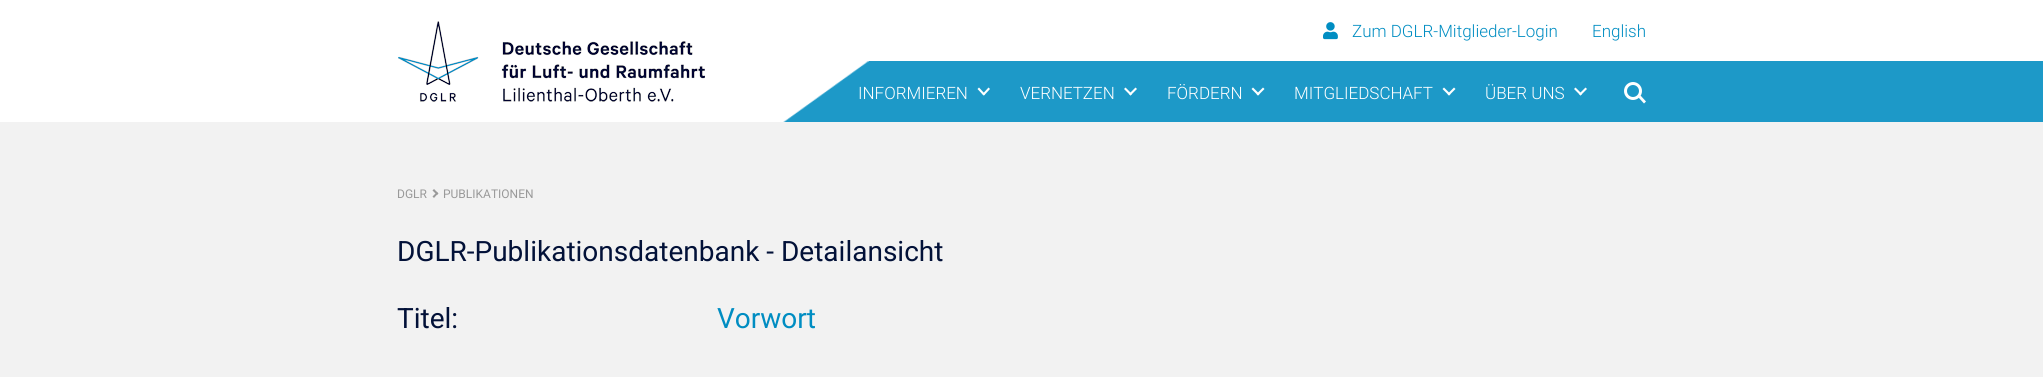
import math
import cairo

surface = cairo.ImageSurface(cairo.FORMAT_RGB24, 2043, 377)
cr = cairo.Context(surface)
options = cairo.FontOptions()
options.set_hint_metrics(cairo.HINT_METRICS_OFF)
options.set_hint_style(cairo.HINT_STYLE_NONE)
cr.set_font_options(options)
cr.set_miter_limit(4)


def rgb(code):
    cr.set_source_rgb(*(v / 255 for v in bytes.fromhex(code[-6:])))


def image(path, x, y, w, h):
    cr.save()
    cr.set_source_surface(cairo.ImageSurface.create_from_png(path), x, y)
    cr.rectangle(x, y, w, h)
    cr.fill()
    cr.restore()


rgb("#f2f2f2")
cr.paint()
rgb("#ffffff")
cr.rectangle(0, 0, 2043, 61)
cr.fill()
rgb("#1d99c8")
cr.rectangle(783, 61, 1260, 61)
cr.fill()
image("img/3.png", 0, 61, 869, 61)
image("img/1.png", 398, 21, 307, 81)
image("img/2.png", 1323, 22, 15, 18)
rgb("#ffffff")
cr.new_path()
cr.move_to(979, 87.5)
cr.line_to(985, 94)
cr.line_to(983.5, 95.5)
cr.line_to(977.5, 89)
cr.close_path()
cr.fill()
cr.new_path()
cr.move_to(982.5, 94)
cr.line_to(988.5, 87.5)
cr.line_to(990, 89)
cr.line_to(984, 95.5)
cr.close_path()
cr.fill()
cr.new_path()
cr.move_to(1125.5, 87.5)
cr.line_to(1132, 94)
cr.line_to(1130.5, 95.5)
cr.line_to(1124, 89)
cr.close_path()
cr.fill()
cr.new_path()
cr.move_to(1129, 94)
cr.line_to(1135.5, 87.5)
cr.line_to(1137, 89)
cr.line_to(1130.5, 95.5)
cr.close_path()
cr.fill()
cr.new_path()
cr.move_to(1253, 87.5)
cr.line_to(1259.5, 94)
cr.line_to(1258, 95.5)
cr.line_to(1251.5, 89)
cr.close_path()
cr.fill()
cr.new_path()
cr.move_to(1256.5, 94)
cr.line_to(1263, 87.5)
cr.line_to(1264.5, 89)
cr.line_to(1258, 95.5)
cr.close_path()
cr.fill()
cr.new_path()
cr.move_to(1444, 87.5)
cr.line_to(1450.5, 94)
cr.line_to(1449, 95.5)
cr.line_to(1442.5, 89)
cr.close_path()
cr.fill()
cr.new_path()
cr.move_to(1447.5, 94)
cr.line_to(1454, 87.5)
cr.line_to(1455.5, 89)
cr.line_to(1449, 95.5)
cr.close_path()
cr.fill()
cr.new_path()
cr.move_to(1575.5, 87.5)
cr.line_to(1582, 94)
cr.line_to(1580.5, 95.5)
cr.line_to(1574, 89)
cr.close_path()
cr.fill()
cr.new_path()
cr.move_to(1579, 94)
cr.line_to(1585.5, 87.5)
cr.line_to(1587, 89)
cr.line_to(1580.5, 95.5)
cr.close_path()
cr.fill()
cr.arc(1633, 91, 7.5, 0, 2 * math.pi)
cr.set_line_width(3)
cr.stroke()
cr.new_path()
cr.move_to(1640.5, 95.5)
cr.line_to(1646, 101.5)
cr.line_to(1644, 103.5)
cr.line_to(1638.5, 97.5)
cr.close_path()
cr.fill()
rgb("#999999")
cr.new_path()
cr.move_to(432.5, 196.5)
cr.line_to(437, 192)
cr.line_to(438, 193.5)
cr.line_to(434, 198)
cr.close_path()
cr.fill()
cr.new_path()
cr.move_to(437, 195)
cr.line_to(432.5, 190.5)
cr.line_to(434, 189)
cr.line_to(438.5, 193.5)
cr.close_path()
cr.fill()
cr.select_font_face("Roboto Light")
cr.set_font_size(17)
rgb("#008dc2")
cr.move_to(1352, 37)
cr.show_text("Zum DGLR-Mitglieder-Login")
cr.move_to(1592, 37)
cr.show_text("English")
rgb("#ffffff")
for x, y, s in [
    (858, 99, "INFORMIEREN"),
    (1020, 99, "VERNETZEN"),
    (1167, 99, "FÖRDERN"),
    (1294, 99, "MITGLIEDSCHAFT"),
    (1485, 99, "ÜBER UNS"),
]:
    cr.move_to(x, y)
    cr.show_text(s)
cr.select_font_face("Roboto")
cr.set_font_size(12)
rgb("#999999")
cr.move_to(397, 198)
cr.show_text("DGLR")
cr.move_to(443, 198)
cr.show_text("PUBLIKATIONEN")
cr.set_font_size(28)
rgb("#021138")
cr.move_to(397, 261)
cr.show_text("DGLR-Publikationsdatenbank - Detailansicht")
cr.move_to(397, 328)
cr.show_text("Titel:")
rgb("#008dc2")
cr.move_to(717, 328)
cr.show_text("Vorwort")
surface.write_to_png("page.png")
